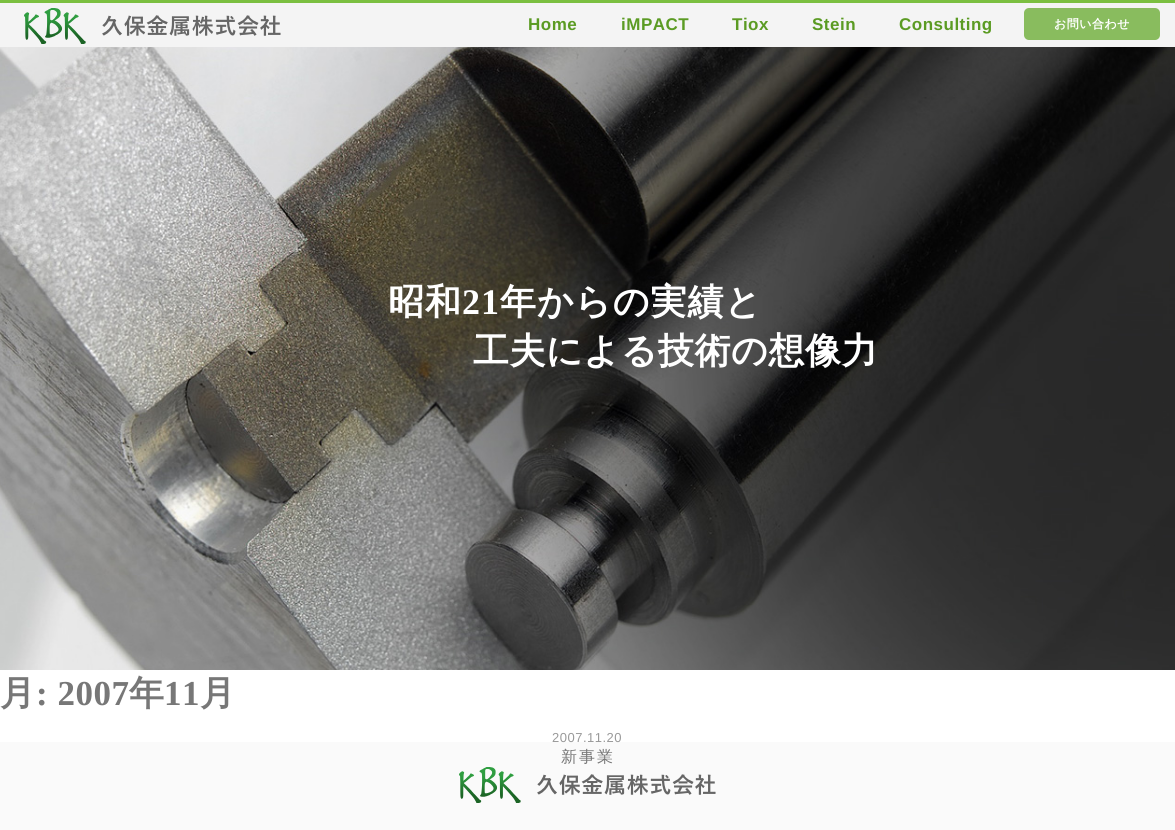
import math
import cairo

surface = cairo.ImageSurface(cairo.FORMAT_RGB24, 1175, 830)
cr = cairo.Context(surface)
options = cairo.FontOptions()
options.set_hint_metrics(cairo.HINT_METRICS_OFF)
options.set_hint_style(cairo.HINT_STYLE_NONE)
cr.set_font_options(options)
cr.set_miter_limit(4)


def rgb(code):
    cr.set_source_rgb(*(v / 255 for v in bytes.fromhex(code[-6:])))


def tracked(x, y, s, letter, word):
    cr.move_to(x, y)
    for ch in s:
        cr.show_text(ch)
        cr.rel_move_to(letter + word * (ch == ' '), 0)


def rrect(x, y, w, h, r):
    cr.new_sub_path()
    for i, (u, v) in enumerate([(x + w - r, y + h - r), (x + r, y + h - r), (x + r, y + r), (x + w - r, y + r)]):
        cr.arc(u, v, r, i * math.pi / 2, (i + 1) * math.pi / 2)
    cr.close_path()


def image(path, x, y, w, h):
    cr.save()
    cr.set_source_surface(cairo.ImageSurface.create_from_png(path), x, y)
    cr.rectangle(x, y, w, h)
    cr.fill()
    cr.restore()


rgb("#ffffff")
cr.paint()
image("img/1.png", 0, 47, 1175, 623)
rgb("#f4f4f4")
cr.rectangle(0, 3, 1175, 44)
cr.fill()
rgb("#7bbf40")
cr.rectangle(0, 0, 1175, 3)
cr.fill()
image("img/2.png", 24, 8, 257, 36)
rgb("#89bc5e")
rrect(1024, 8, 136, 32, 5)
cr.fill()
rgb("#fafafa")
cr.rectangle(0, 742, 1175, 88)
cr.fill()
image("img/3.png", 459, 767, 257, 36)
cr.select_font_face("Liberation Sans", cairo.FONT_SLANT_NORMAL, cairo.FONT_WEIGHT_BOLD)
cr.set_font_size(17)
rgb("#5b9b23")
for x, y, s in [
    (528, 30, "Home"),
    (621, 30, "iMPACT"),
    (732, 30, "Tiox"),
    (812, 30, "Stein"),
    (899, 30, "Consulting"),
]:
    tracked(x, y, s, 0.5, 0)
cr.select_font_face("WenQuanYi Zen Hei", cairo.FONT_SLANT_NORMAL, cairo.FONT_WEIGHT_BOLD)
cr.set_font_size(12)
rgb("#ffffff")
tracked(1054, 28, "お問い合わせ", 0.5, 0)
cr.set_font_size(36)
tracked(388, 314, "昭和", 1, 0)
cr.select_font_face("Liberation Serif", cairo.FONT_SLANT_NORMAL, cairo.FONT_WEIGHT_BOLD)
tracked(462, 314, "21", 1, 0)
cr.select_font_face("WenQuanYi Zen Hei", cairo.FONT_SLANT_NORMAL, cairo.FONT_WEIGHT_BOLD)
tracked(500, 314, "年からの実績と", 1, 0)
tracked(473, 363, "工夫による技術の想像力", 0.5, 0)
cr.set_font_size(35)
rgb("#777777")
tracked(0, 705, "月", 0.5, 0)
cr.select_font_face("Liberation Serif", cairo.FONT_SLANT_NORMAL, cairo.FONT_WEIGHT_BOLD)
tracked(36, 705, ": 2007", 0.5, 0)
cr.select_font_face("WenQuanYi Zen Hei", cairo.FONT_SLANT_NORMAL, cairo.FONT_WEIGHT_BOLD)
tracked(129, 705, "年", 0.5, 0)
cr.select_font_face("Liberation Serif", cairo.FONT_SLANT_NORMAL, cairo.FONT_WEIGHT_BOLD)
tracked(164, 705, "11", 0.5, 0)
cr.select_font_face("WenQuanYi Zen Hei", cairo.FONT_SLANT_NORMAL, cairo.FONT_WEIGHT_BOLD)
tracked(200, 705, "月", 0.5, 0)
cr.select_font_face("Liberation Sans")
cr.set_font_size(13)
rgb("#999999")
tracked(552, 742, "2007.11.20", 0.5, 0)
cr.select_font_face("WenQuanYi Zen Hei Medium")
cr.set_font_size(16)
rgb("#777777")
tracked(561, 762, "新事業", 2, 0)
surface.write_to_png("page.png")
